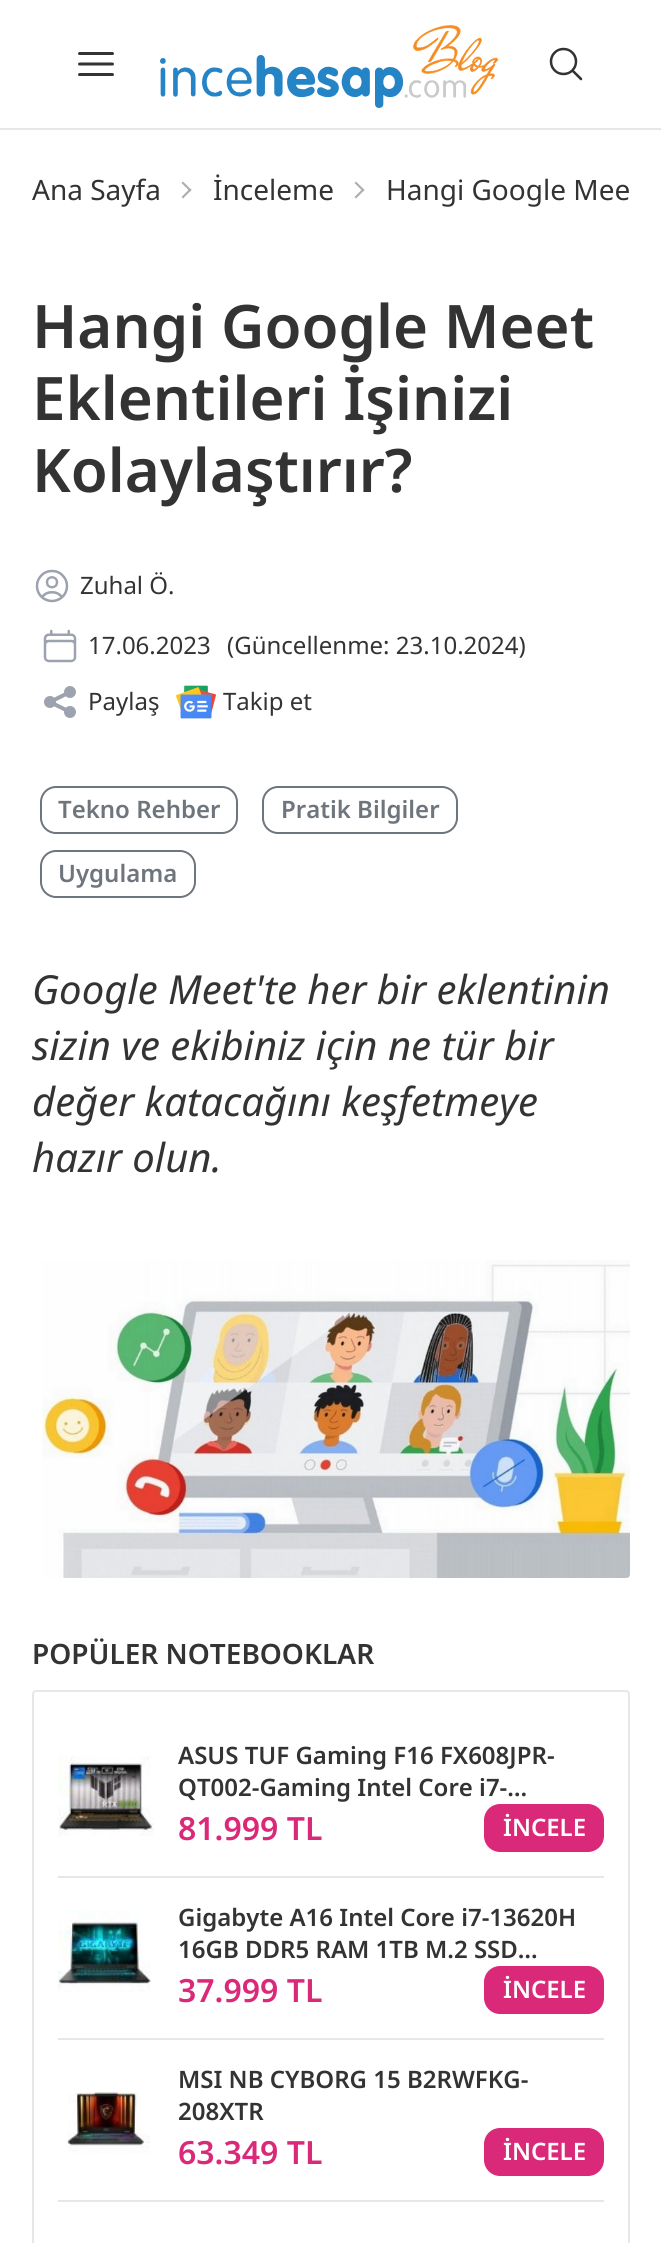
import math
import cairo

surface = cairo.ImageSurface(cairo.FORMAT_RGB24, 661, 2243)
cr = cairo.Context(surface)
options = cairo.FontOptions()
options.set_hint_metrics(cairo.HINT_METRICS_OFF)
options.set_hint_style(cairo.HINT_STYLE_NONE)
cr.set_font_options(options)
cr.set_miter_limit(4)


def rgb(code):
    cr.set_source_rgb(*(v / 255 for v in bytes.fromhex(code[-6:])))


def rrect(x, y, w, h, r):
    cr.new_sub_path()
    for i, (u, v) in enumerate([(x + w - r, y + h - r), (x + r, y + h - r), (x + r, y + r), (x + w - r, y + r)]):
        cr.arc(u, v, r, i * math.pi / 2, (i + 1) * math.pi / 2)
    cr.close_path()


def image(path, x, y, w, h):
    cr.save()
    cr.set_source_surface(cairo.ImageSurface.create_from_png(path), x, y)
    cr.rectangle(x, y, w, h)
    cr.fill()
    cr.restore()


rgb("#ffffff")
cr.paint()
rgb("#e5e7eb")
cr.rectangle(0, 128, 661, 2)
cr.fill()
image("img/1.png", 78, 52, 36, 24)
image("img/2.png", 160, 25, 339, 83)
image("img/3.png", 549, 47, 34, 34)
rgb("#adadad")
cr.new_path()
cr.move_to(183, 181.5)
cr.line_to(191.5, 190)
cr.line_to(190, 191.5)
cr.line_to(181.5, 183)
cr.close_path()
cr.fill()
cr.new_path()
cr.move_to(190, 188.5)
cr.line_to(191.5, 190)
cr.line_to(183, 198.5)
cr.line_to(181.5, 197)
cr.close_path()
cr.fill()
cr.new_path()
cr.move_to(356, 181.5)
cr.line_to(364.5, 190)
cr.line_to(363, 191.5)
cr.line_to(354.5, 183)
cr.close_path()
cr.fill()
cr.new_path()
cr.move_to(363, 188.5)
cr.line_to(364.5, 190)
cr.line_to(356, 198.5)
cr.line_to(354.5, 197)
cr.close_path()
cr.fill()
image("img/4.png", 35, 569, 34, 34)
image("img/5.png", 43, 629, 34, 34)
image("img/6.png", 44, 686, 32, 32)
image("img/7.png", 176, 685, 40, 34)
rrect(41, 787, 196, 46, 15)
rgb("#6e757c")
cr.stroke()
rrect(263, 787, 194, 46, 15)
cr.stroke()
rrect(41, 851, 154, 46, 15)
cr.stroke()
image("img/8.png", 42, 1260, 588, 318)
rrect(33, 1691, 596, 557, 3)
rgb("#e5e7eb")
cr.stroke()
image("img/9.png", 58, 1756, 96, 80)
rgb("#db2979")
rrect(485, 1805, 118, 46, 15)
cr.fill_preserve()
cr.stroke()
rgb("#e5e7eb")
cr.rectangle(58, 1876, 546, 2)
cr.fill()
image("img/10.png", 58, 1910, 93, 82)
rgb("#db2979")
rrect(485, 1967, 118, 46, 15)
cr.fill_preserve()
cr.stroke()
rgb("#e5e7eb")
cr.rectangle(58, 2038, 546, 2)
cr.fill()
image("img/11.png", 66, 2091, 84, 63)
rgb("#db2979")
rrect(485, 2129, 118, 46, 15)
cr.fill_preserve()
cr.stroke()
rgb("#e5e7eb")
cr.rectangle(58, 2200, 546, 2)
cr.fill()
cr.select_font_face("Noto Sans")
cr.set_font_size(28)
rgb("#333333")
for x, y, s in [
    (32, 200, "Ana Sayfa"),
    (213, 200, "İnceleme"),
    (386, 200, "Hangi Google Mee"),
]:
    cr.move_to(x, y)
    cr.show_text(s)
cr.select_font_face("Noto Sans SemiBold")
cr.set_font_size(60)
for x, y, s in [
    (32, 348, "Hangi Google Meet"),
    (32, 420, "Eklentileri İşinizi"),
    (32, 492, "Kolaylaştırır?"),
]:
    cr.move_to(x, y)
    cr.show_text(s)
cr.select_font_face("Noto Sans")
cr.set_font_size(24)
for x, y, s in [
    (80, 594, "Zuhal Ö."),
    (88, 654, "17.06.2023"),
    (227, 654, "(Güncellenme: 23.10.2024)"),
    (88, 710, "Paylaş"),
    (223, 710, "Takip et"),
]:
    cr.move_to(x, y)
    cr.show_text(s)
cr.select_font_face("Noto Sans SemiBold")
rgb("#6e757c")
for x, y, s in [
    (58, 818, "Tekno Rehber"),
    (281, 818, "Pratik Bilgiler"),
    (58, 882, "Uygulama"),
]:
    cr.move_to(x, y)
    cr.show_text(s)
cr.select_font_face("Noto Sans", cairo.FONT_SLANT_ITALIC)
cr.set_font_size(40)
rgb("#333333")
for x, y, s in [
    (32, 1004, "Google Meet'te her bir eklentinin"),
    (32, 1060, "sizin ve ekibiniz için ne tür bir"),
    (32, 1116, "değer katacağını keşfetmeye"),
    (32, 1172, "hazır olun."),
]:
    cr.move_to(x, y)
    cr.show_text(s)
cr.select_font_face("Noto Sans SemiBold")
cr.set_font_size(28)
cr.move_to(32, 1664)
cr.show_text("POPÜLER NOTEBOOKLAR")
cr.set_font_size(24)
cr.move_to(178, 1764)
cr.show_text("ASUS TUF Gaming F16 FX608JPR-")
cr.move_to(178, 1796)
cr.show_text("QT002-Gaming Intel Core i7-…")
cr.set_font_size(32)
rgb("#db2979")
cr.move_to(178, 1840)
cr.show_text("81.999 TL")
cr.set_font_size(24)
rgb("#ffffff")
cr.move_to(503, 1836)
cr.show_text("İNCELE")
rgb("#333333")
cr.move_to(178, 1926)
cr.show_text("Gigabyte A16 Intel Core i7-13620H")
cr.move_to(178, 1958)
cr.show_text("16GB DDR5 RAM 1TB M.2 SSD…")
cr.set_font_size(32)
rgb("#db2979")
cr.move_to(178, 2002)
cr.show_text("37.999 TL")
cr.set_font_size(24)
rgb("#ffffff")
cr.move_to(503, 1998)
cr.show_text("İNCELE")
rgb("#333333")
cr.move_to(178, 2088)
cr.show_text("MSI NB CYBORG 15 B2RWFKG-")
cr.move_to(178, 2120)
cr.show_text("208XTR")
cr.set_font_size(32)
rgb("#db2979")
cr.move_to(178, 2164)
cr.show_text("63.349 TL")
cr.set_font_size(24)
rgb("#ffffff")
cr.move_to(503, 2160)
cr.show_text("İNCELE")
surface.write_to_png("page.png")
